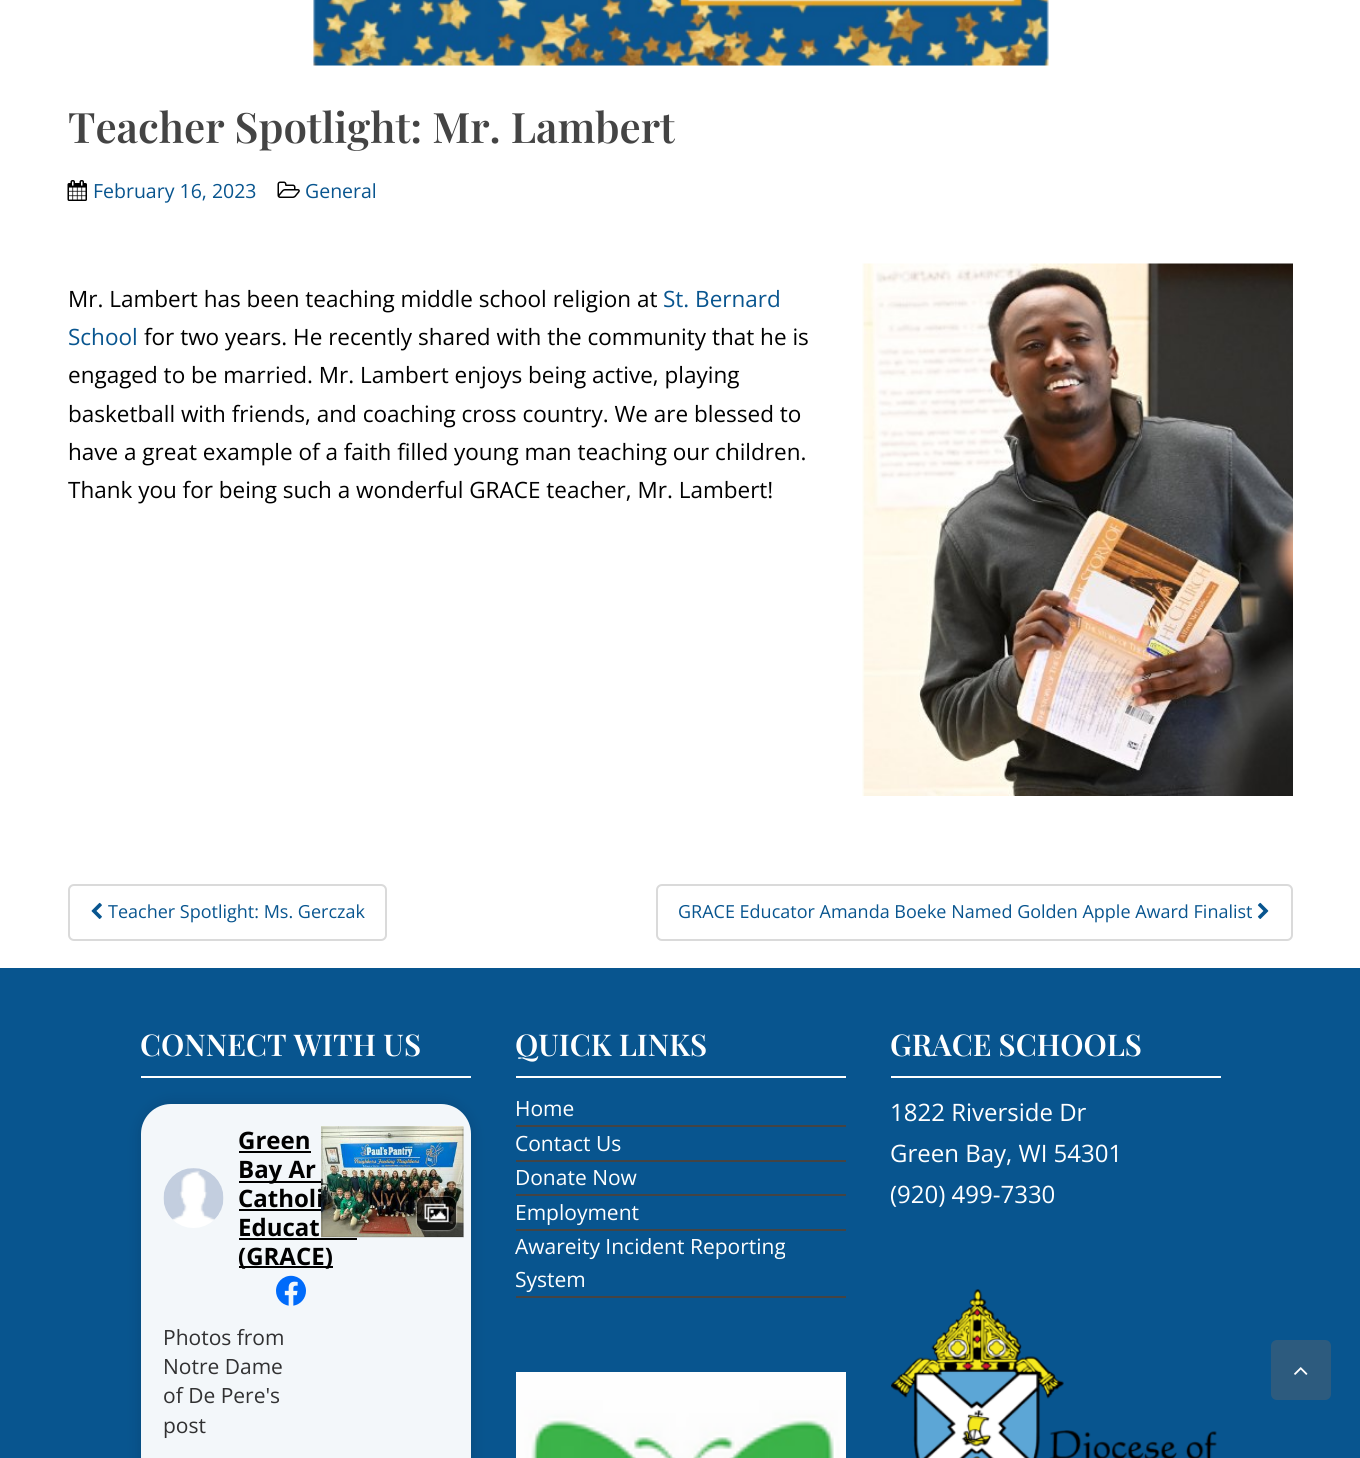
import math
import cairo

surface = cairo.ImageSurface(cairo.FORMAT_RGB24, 1360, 1458)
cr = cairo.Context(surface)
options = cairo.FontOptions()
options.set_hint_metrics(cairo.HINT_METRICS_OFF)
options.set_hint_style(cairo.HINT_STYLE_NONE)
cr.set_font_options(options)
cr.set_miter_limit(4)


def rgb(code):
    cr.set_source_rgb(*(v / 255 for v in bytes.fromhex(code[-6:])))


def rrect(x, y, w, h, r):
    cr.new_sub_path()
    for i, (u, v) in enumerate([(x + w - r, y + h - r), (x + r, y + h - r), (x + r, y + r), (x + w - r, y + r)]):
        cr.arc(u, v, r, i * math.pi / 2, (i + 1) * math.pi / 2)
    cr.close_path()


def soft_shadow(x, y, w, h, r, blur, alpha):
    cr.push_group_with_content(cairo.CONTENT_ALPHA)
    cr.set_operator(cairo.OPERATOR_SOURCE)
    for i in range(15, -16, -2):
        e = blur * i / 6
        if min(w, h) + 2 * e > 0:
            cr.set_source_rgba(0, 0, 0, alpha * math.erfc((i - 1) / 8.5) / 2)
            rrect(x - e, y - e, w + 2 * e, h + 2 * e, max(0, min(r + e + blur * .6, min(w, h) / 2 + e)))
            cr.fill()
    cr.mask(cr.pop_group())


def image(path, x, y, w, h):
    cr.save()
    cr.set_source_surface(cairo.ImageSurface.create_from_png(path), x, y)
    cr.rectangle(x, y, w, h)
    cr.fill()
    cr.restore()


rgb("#ffffff")
cr.paint()
image("img/1.png", 313, 0, 736, 66)
image("img/2.png", 67, 180, 20, 21)
image("img/3.png", 277, 181, 23, 17)
image("img/4.png", 862, 263, 431, 533)
rrect(69, 885, 317, 55, 5)
rgb("#dadada")
cr.stroke()
image("img/5.png", 91, 902, 11, 17)
rrect(657, 885, 635, 55, 5)
cr.stroke()
image("img/6.png", 1257, 902, 12, 17)
rgb("#08558f")
cr.rectangle(0, 968, 1360, 490)
cr.fill()
rgb("#ffffff")
cr.rectangle(141, 1076, 330, 2)
cr.fill()
cr.save()
cr.set_fill_rule(cairo.FILL_RULE_EVEN_ODD)
cr.new_path()
cr.move_to(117, 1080)
cr.line_to(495, 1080)
cr.line_to(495, 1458)
cr.line_to(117, 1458)
cr.close_path()
cr.move_to(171, 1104)
cr.line_to(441, 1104)
cr.curve_to(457.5, 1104, 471, 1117.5, 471, 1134)
cr.line_to(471, 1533)
cr.curve_to(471, 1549.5, 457.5, 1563, 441, 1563)
cr.line_to(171, 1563)
cr.curve_to(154.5, 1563, 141, 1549.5, 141, 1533)
cr.line_to(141, 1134)
cr.curve_to(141, 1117.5, 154.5, 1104, 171, 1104)
cr.close_path()
cr.clip()
rgb("#000000")
soft_shadow(141, 1104, 330, 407, 30, 7.5, 0.15)
cr.restore()
cr.set_source_rgba(1, 1, 1, 0.95)
rrect(141, 1104, 330, 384, 30)
cr.fill()
image("img/7.png", 163, 1168, 61, 60)
for x, y, w, h, color in [
    (239, 1151, 72, 2, "#000000"),
    (239, 1181, 82, 2, "#000000"),
    (239, 1209, 82, 2, "#000000"),
    (239, 1238, 118, 2, "#000000"),
    (239, 1266, 94, 2, "#000000"),
]:
    rgb(color)
    cr.rectangle(x, y, w, h)
    cr.fill()
image("img/8.png", 276, 1275, 30, 31)
for x, y, w, h, color in [
    (516, 1076, 330, 2, "#ffffff"),
    (516, 1125, 330, 2, "#444444"),
    (516, 1160, 330, 2, "#444444"),
    (516, 1194, 330, 2, "#444444"),
    (516, 1229, 330, 2, "#444444"),
    (516, 1296, 330, 2, "#444444"),
]:
    rgb(color)
    cr.rectangle(x, y, w, h)
    cr.fill()
image("img/11.png", 516, 1372, 330, 86)
rgb("#ffffff")
cr.rectangle(891, 1076, 330, 2)
cr.fill()
image("img/12.png", 891, 1289, 326, 169)
rgb("#2d5b7e")
rrect(1271, 1340, 60, 60, 6)
cr.fill()
image("img/13.png", 1294, 1367, 14, 8)
cr.select_font_face("Playfair Display SemiBold")
cr.set_font_size(42)
rgb("#444444")
cr.move_to(68, 143)
cr.show_text("Teacher Spotlight: Mr. Lambert")
cr.select_font_face("Open Sans")
cr.set_font_size(19.5)
rgb("#08558f")
cr.move_to(93, 198)
cr.show_text("February 16, 2023")
cr.move_to(305, 198)
cr.show_text("General")
cr.set_font_size(22.5)
rgb("#000000")
cr.move_to(68, 307)
cr.show_text("Mr. Lambert has been teaching middle school religion at")
rgb("#08558f")
cr.move_to(663, 307)
cr.show_text("St. Bernard")
cr.move_to(68, 345)
cr.show_text("School")
rgb("#000000")
for x, y, s in [
    (144, 345, "for two years. He recently shared with the community that he is"),
    (68, 383, "engaged to be married. Mr. Lambert enjoys being active, playing"),
    (68, 422, "basketball with friends, and coaching cross country. We are blessed to"),
    (68, 460, "have a great example of a faith filled young man teaching our children."),
    (68, 498, "Thank you for being such a wonderful GRACE teacher, Mr. Lambert!"),
]:
    cr.move_to(x, y)
    cr.show_text(s)
cr.set_font_size(18)
rgb("#08558f")
cr.move_to(108, 918)
cr.show_text("Teacher Spotlight: Ms. Gerczak")
cr.move_to(678, 918)
cr.show_text("GRACE Educator Amanda Boeke Named Golden Apple Award Finalist")
cr.select_font_face("Playfair Display SemiBold")
cr.set_font_size(30)
rgb("#ffffff")
cr.move_to(140, 1056)
cr.show_text("CONNECT WITH US")
cr.select_font_face("Open Sans", cairo.FONT_SLANT_NORMAL, cairo.FONT_WEIGHT_BOLD)
cr.set_font_size(24)
rgb("#000000")
for x, y, s in [
    (238, 1149, "Green"),
    (238, 1178, "Bay Ar"),
    (238, 1207, "Catholi"),
    (238, 1236, "Educat"),
    (238, 1265, "(GRACE)"),
]:
    cr.move_to(x, y)
    cr.show_text(s)
cr.select_font_face("Open Sans")
cr.set_font_size(21)
rgb("#313132")
for x, y, s in [
    (163, 1345, "Photos from"),
    (163, 1374, "Notre Dame"),
    (163, 1403, "of De Pere's"),
    (163, 1433, "post"),
]:
    cr.move_to(x, y)
    cr.show_text(s)
image("img/9.png", 321, 1126, 143, 111)
cr.rectangle(322, 1128, 141, 109)
cr.set_source_rgba(0, 0, 0, 0.1)
cr.stroke()
cr.save()
cr.set_fill_rule(cairo.FILL_RULE_EVEN_ODD)
cr.new_path()
cr.move_to(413, 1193)
cr.line_to(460, 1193)
cr.line_to(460, 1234)
cr.line_to(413, 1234)
cr.close_path()
cr.move_to(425, 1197)
cr.line_to(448, 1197)
cr.curve_to(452.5, 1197, 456, 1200.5, 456, 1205)
cr.line_to(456, 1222)
cr.curve_to(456, 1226.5, 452.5, 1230, 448, 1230)
cr.line_to(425, 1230)
cr.curve_to(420.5, 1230, 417, 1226.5, 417, 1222)
cr.line_to(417, 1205)
cr.curve_to(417, 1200.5, 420.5, 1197, 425, 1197)
cr.close_path()
cr.clip()
rgb("#ffffff")
soft_shadow(417, 1197, 39, 33, 8, 1, 0.8)
cr.restore()
cr.set_source_rgba(0, 0, 0, 0.7)
rrect(417, 1197, 39, 33, 8)
cr.fill()
image("img/10.png", 424, 1203, 25, 20)
cr.select_font_face("Playfair Display SemiBold")
cr.set_font_size(30)
rgb("#ffffff")
cr.move_to(515, 1056)
cr.show_text("QUICK LINKS")
cr.select_font_face("Open Sans")
cr.set_font_size(21)
for x, y, s in [
    (515, 1116, "Home"),
    (515, 1151, "Contact Us"),
    (515, 1185, "Donate Now"),
    (515, 1220, "Employment"),
    (515, 1254, "Awareity Incident Reporting"),
    (515, 1287, "System"),
]:
    cr.move_to(x, y)
    cr.show_text(s)
cr.select_font_face("Playfair Display SemiBold")
cr.set_font_size(30)
cr.move_to(890, 1056)
cr.show_text("GRACE SCHOOLS")
cr.select_font_face("Open Sans")
cr.set_font_size(24)
for x, y, s in [
    (890, 1121, "1822 Riverside Dr"),
    (890, 1162, "Green Bay, WI 54301"),
    (890, 1203, "(920) 499-7330"),
]:
    cr.move_to(x, y)
    cr.show_text(s)
surface.write_to_png("page.png")
